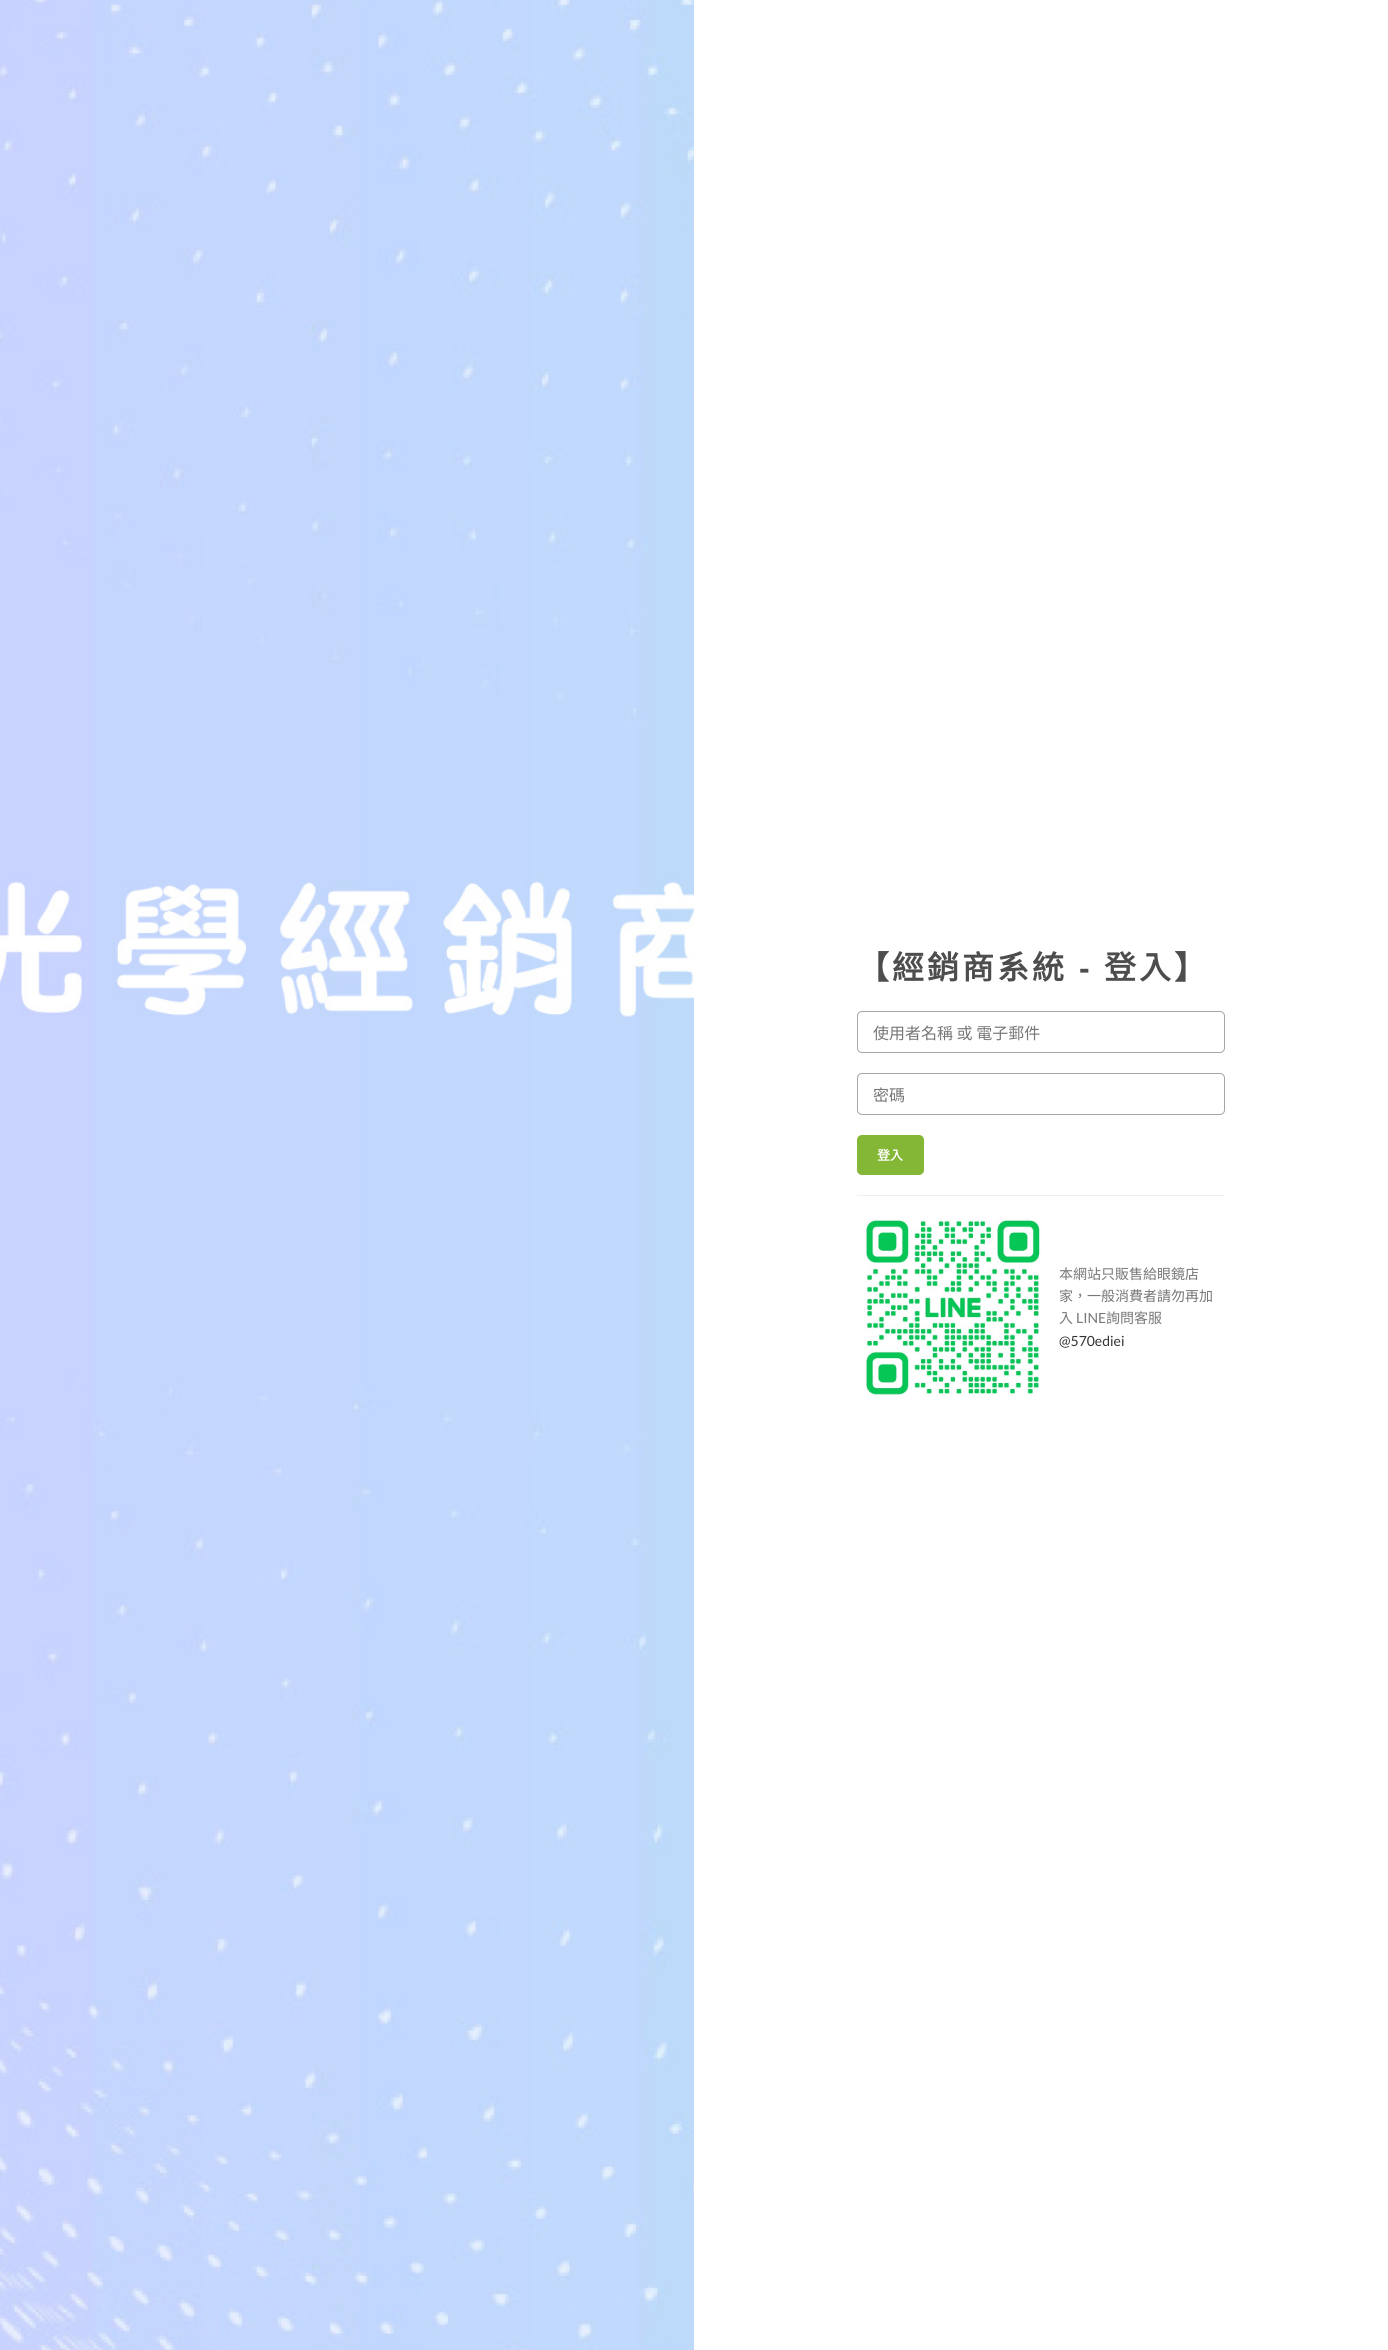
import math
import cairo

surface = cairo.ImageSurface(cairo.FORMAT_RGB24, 1388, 2350)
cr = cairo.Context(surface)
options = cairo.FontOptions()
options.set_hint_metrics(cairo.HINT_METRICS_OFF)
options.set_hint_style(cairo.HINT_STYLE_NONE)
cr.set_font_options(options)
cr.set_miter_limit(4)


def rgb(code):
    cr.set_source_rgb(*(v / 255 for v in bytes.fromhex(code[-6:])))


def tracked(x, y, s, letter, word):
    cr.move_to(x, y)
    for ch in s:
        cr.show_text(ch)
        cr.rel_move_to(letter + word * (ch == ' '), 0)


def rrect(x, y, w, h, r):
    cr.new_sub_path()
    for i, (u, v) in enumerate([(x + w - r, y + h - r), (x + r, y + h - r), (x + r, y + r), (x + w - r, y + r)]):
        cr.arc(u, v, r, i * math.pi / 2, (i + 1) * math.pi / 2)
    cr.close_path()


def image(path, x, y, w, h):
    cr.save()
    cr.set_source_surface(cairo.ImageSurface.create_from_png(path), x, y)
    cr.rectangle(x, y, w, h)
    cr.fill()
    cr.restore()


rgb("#ffffff")
cr.paint()
image("img/1.png", 0, 0, 694, 2350)
rrect(857.5, 1011.5, 367, 41, 4.5)
rgb("#a6a6a6")
cr.set_line_width(1)
cr.stroke()
rrect(857.5, 1073.5, 367, 41, 4.5)
cr.stroke()
rgb("#83b735")
rrect(857, 1135, 67, 40, 5)
cr.fill()
rgb("#eeeeee")
cr.rectangle(857, 1195, 368, 1)
cr.fill()
image("img/2.png", 863, 1217, 179, 179)
cr.select_font_face("Noto Sans CJK TC", cairo.FONT_SLANT_NORMAL, cairo.FONT_WEIGHT_BOLD)
cr.set_font_size(32)
rgb("#4d4d4d")
tracked(857, 979, "【經銷商系統", 3, 0)
cr.select_font_face("Liberation Sans", cairo.FONT_SLANT_NORMAL, cairo.FONT_WEIGHT_BOLD)
tracked(1079, 979, "-", 3, 0)
cr.select_font_face("Noto Sans CJK TC", cairo.FONT_SLANT_NORMAL, cairo.FONT_WEIGHT_BOLD)
tracked(1104, 979, "登入】", 3, 0)
cr.select_font_face("Noto Sans CJK TC")
cr.set_font_size(16)
rgb("#777777")
cr.move_to(873, 1039)
cr.show_text("使用者名稱 或 電子郵件")
cr.move_to(873, 1101)
cr.show_text("密碼")
cr.select_font_face("Noto Sans CJK TC", cairo.FONT_SLANT_NORMAL, cairo.FONT_WEIGHT_BOLD)
cr.set_font_size(13)
rgb("#ffffff")
cr.move_to(877, 1160)
cr.show_text("登入")
cr.select_font_face("Noto Sans CJK TC")
cr.set_font_size(14)
rgb("#777777")
for x, y, s in [
    (1059, 1279, "本網站只販售給眼鏡店"),
    (1059, 1301, "家，一般消費者請勿再加"),
    (1059, 1323, "入"),
]:
    cr.move_to(x, y)
    cr.show_text(s)
cr.select_font_face("Lato")
cr.move_to(1076, 1323)
cr.show_text("LINE")
cr.select_font_face("Noto Sans CJK TC")
cr.move_to(1106, 1323)
cr.show_text("詢問客服")
cr.select_font_face("Lato")
rgb("#333333")
cr.move_to(1059, 1346)
cr.show_text("@570ediei")
surface.write_to_png("page.png")
